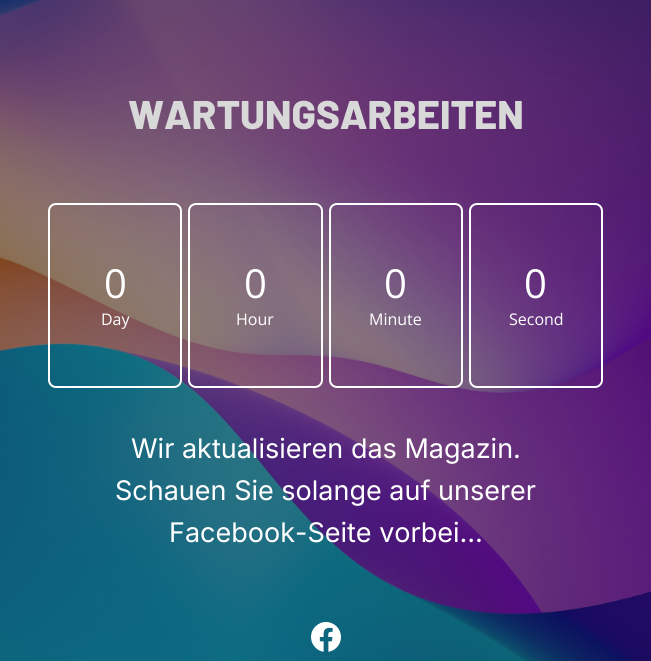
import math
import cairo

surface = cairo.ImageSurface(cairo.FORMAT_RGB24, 651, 661)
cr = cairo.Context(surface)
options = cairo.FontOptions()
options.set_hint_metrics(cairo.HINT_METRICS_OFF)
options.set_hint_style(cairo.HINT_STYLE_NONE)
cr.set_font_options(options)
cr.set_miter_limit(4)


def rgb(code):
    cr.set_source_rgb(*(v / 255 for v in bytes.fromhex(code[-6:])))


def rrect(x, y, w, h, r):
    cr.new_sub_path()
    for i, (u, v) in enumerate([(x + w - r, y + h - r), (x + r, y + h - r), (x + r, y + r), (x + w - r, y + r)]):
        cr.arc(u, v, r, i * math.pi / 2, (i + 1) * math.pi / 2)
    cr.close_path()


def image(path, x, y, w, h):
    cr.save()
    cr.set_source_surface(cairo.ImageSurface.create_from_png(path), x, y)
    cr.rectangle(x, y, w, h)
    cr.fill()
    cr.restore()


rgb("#191717")
cr.paint()
image("img/1.png", 0, 0, 651, 661)
rrect(49, 204, 132, 183, 7)
rgb("#ffffff")
cr.stroke()
rrect(189, 204, 133, 183, 7)
cr.stroke()
rrect(330, 204, 132, 183, 7)
cr.stroke()
rrect(470, 204, 132, 183, 7)
cr.stroke()
image("img/2.png", 311, 622, 30, 30)
cr.select_font_face("Barlow ExtraBold")
cr.set_font_size(40)
rgb("#d8d8d8")
cr.move_to(128, 129)
cr.show_text("WARTUNGSARBEITEN")
cr.select_font_face("Open Sans")
rgb("#ffffff")
cr.move_to(104, 298)
cr.show_text("0")
cr.set_font_size(16)
cr.move_to(101, 325)
cr.show_text("Day")
cr.set_font_size(40)
cr.move_to(244, 298)
cr.show_text("0")
cr.set_font_size(16)
cr.move_to(236, 325)
cr.show_text("Hour")
cr.set_font_size(40)
cr.move_to(384, 298)
cr.show_text("0")
cr.set_font_size(16)
cr.move_to(369, 325)
cr.show_text("Minute")
cr.set_font_size(40)
cr.move_to(524, 298)
cr.show_text("0")
cr.set_font_size(16)
cr.move_to(509, 325)
cr.show_text("Second")
cr.select_font_face("Inter")
cr.set_font_size(27)
for x, y, s in [
    (131, 458, "Wir aktualisieren das Magazin."),
    (115, 500, "Schauen Sie solange auf unserer"),
    (169, 542, "Facebook-Seite vorbei…"),
]:
    cr.move_to(x, y)
    cr.show_text(s)
surface.write_to_png("page.png")
